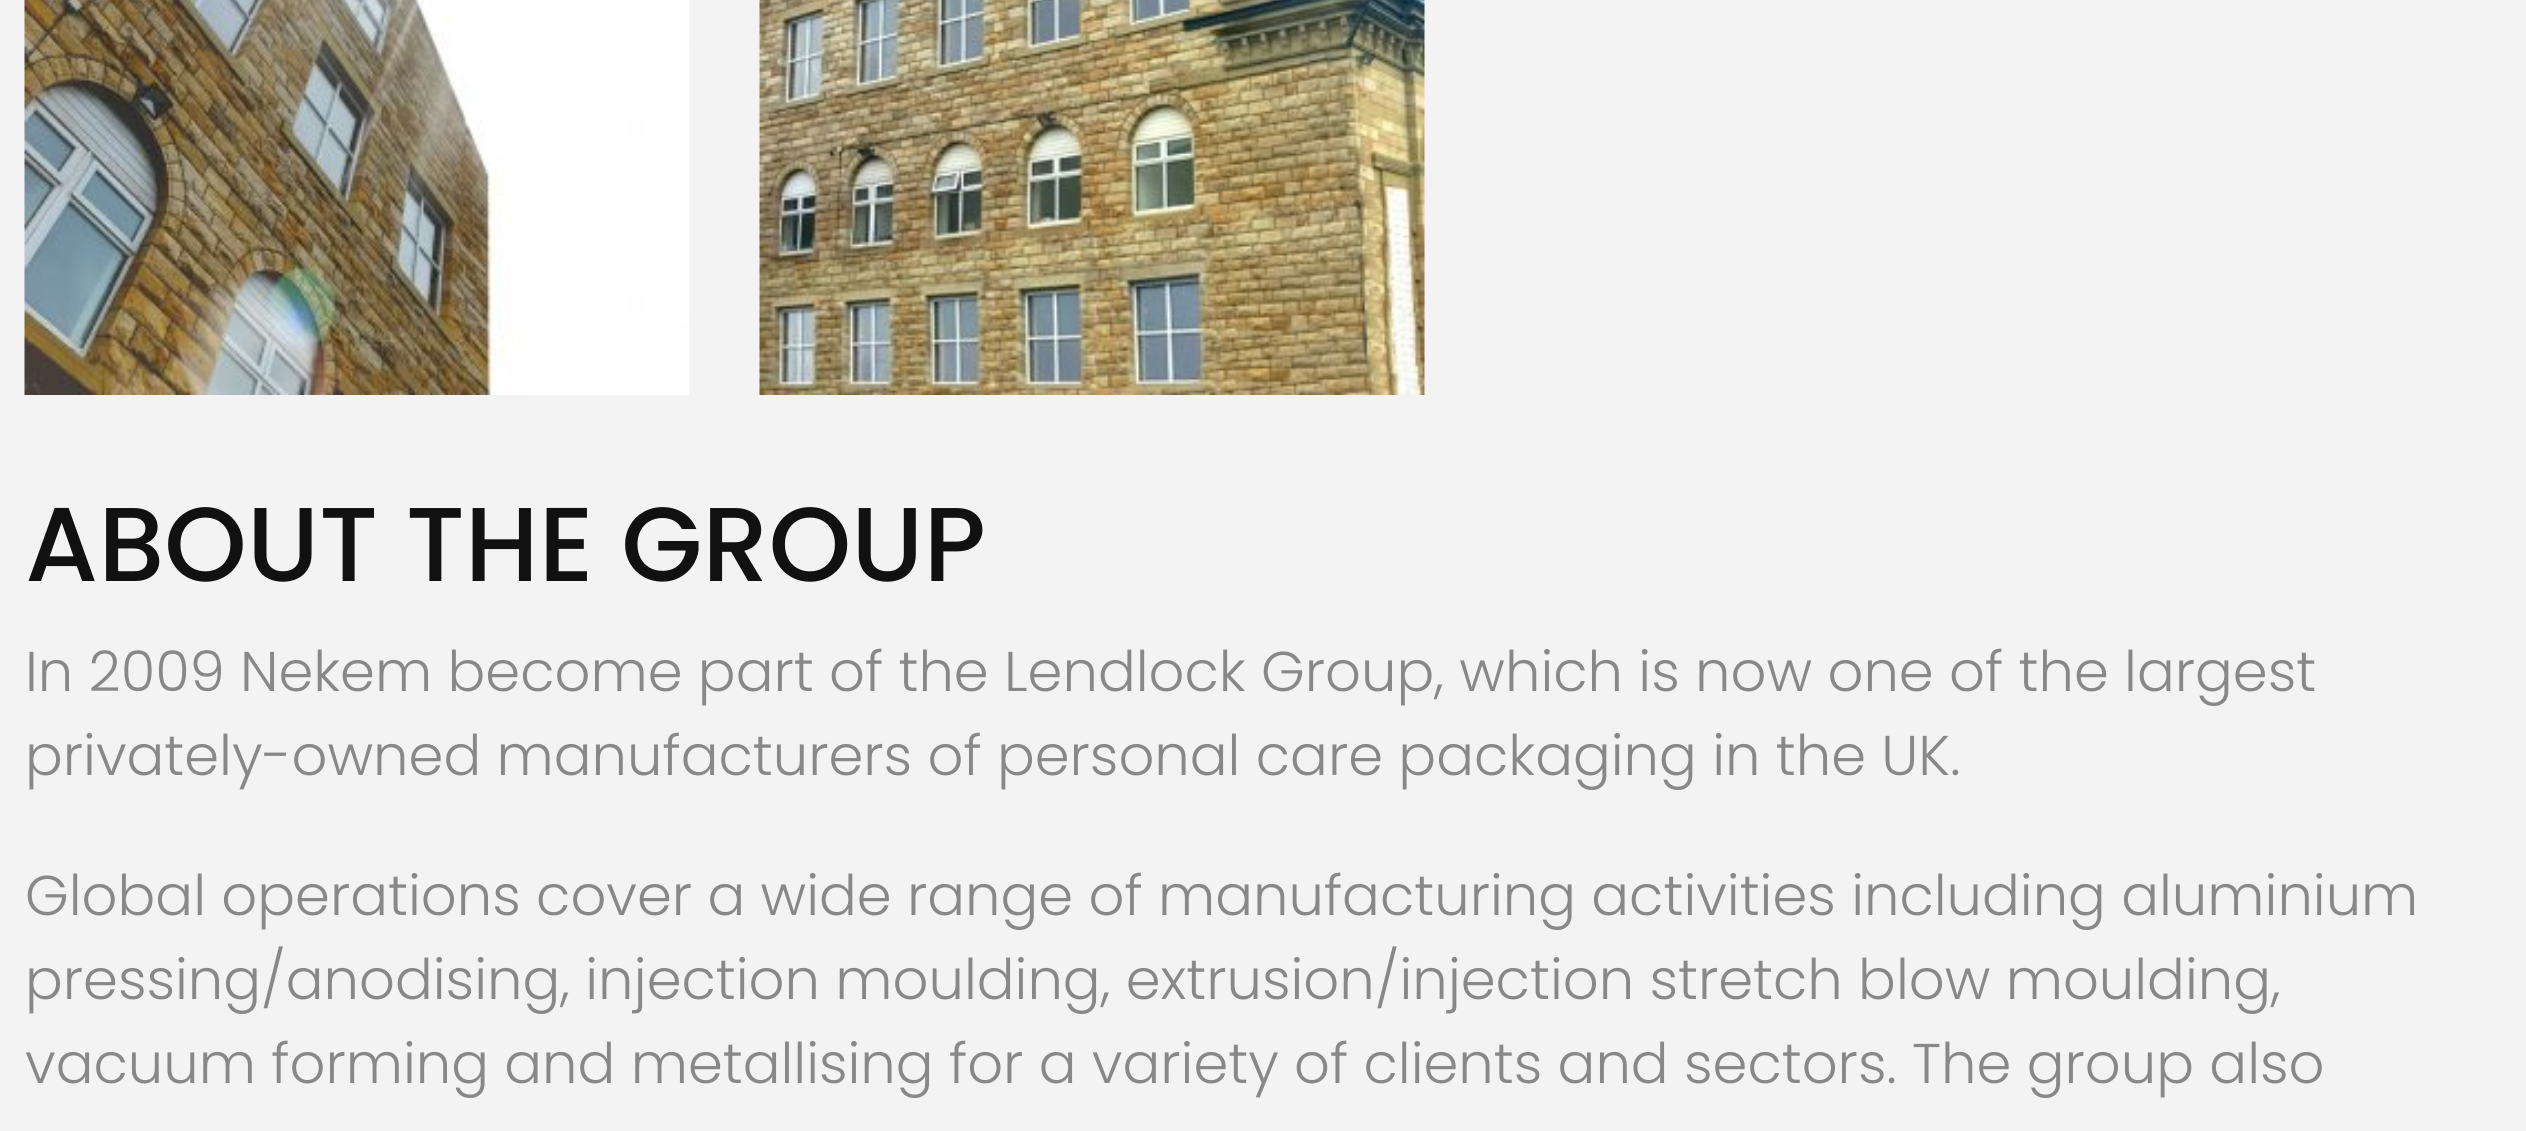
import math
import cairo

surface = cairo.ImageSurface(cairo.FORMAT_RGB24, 2526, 1131)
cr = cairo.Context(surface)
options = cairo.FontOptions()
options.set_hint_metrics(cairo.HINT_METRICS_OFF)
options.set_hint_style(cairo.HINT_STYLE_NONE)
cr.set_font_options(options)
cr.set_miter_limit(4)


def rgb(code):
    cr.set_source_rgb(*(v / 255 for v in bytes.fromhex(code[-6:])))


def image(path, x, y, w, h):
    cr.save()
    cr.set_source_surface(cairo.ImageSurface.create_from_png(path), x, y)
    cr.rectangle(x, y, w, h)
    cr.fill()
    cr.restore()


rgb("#f3f3f3")
cr.paint()
image("img/1.png", 24, 0, 666, 395)
image("img/2.png", 759, 0, 666, 395)
cr.select_font_face("Poppins Medium")
cr.set_font_size(105)
rgb("#111111")
cr.move_to(25, 581)
cr.show_text("ABOUT THE GROUP")
cr.select_font_face("Poppins Light")
cr.set_font_size(56)
rgb("#888888")
for x, y, s in [
    (25, 691, "In 2009 Nekem become part of the Lendlock Group, which is now one of the largest"),
    (25, 775, "privately-owned manufacturers of personal care packaging in the UK."),
    (25, 915, "Global operations cover a wide range of manufacturing activities including aluminium"),
    (25, 999, "pressing/anodising, injection moulding, extrusion/injection stretch blow moulding,"),
    (25, 1083, "vacuum forming and metallising for a variety of clients and sectors. The group also"),
]:
    cr.move_to(x, y)
    cr.show_text(s)
surface.write_to_png("page.png")
